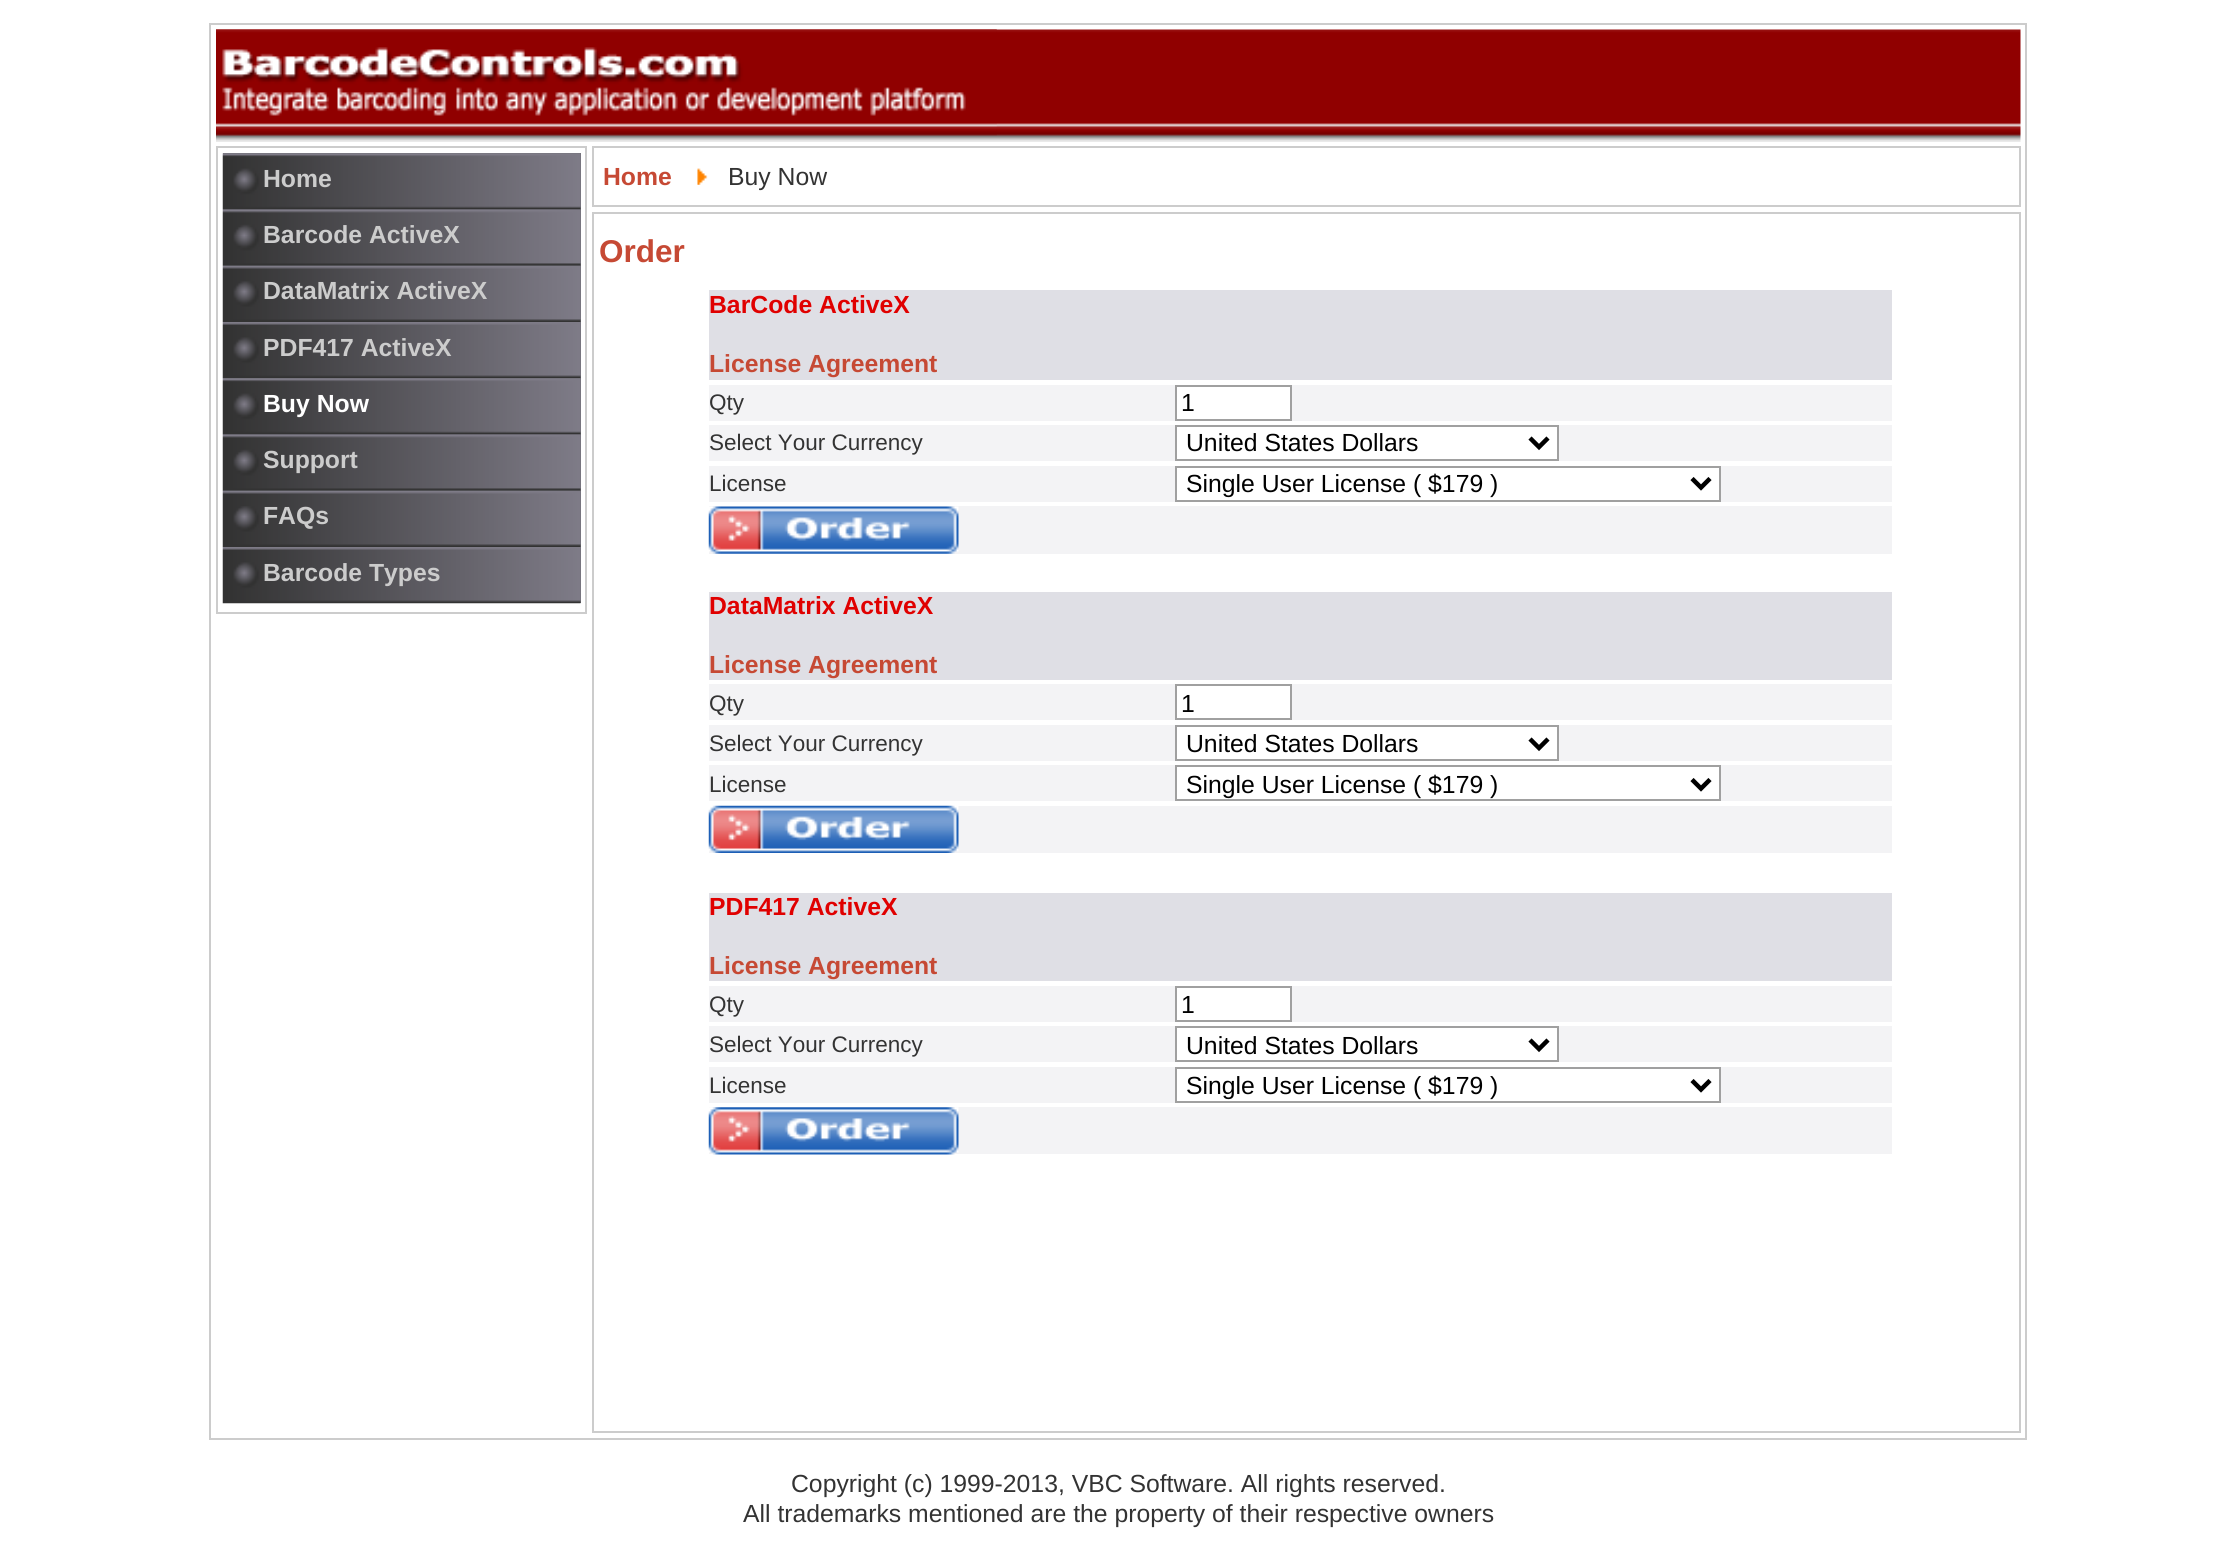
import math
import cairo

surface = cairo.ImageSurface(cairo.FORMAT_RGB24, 2235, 1553)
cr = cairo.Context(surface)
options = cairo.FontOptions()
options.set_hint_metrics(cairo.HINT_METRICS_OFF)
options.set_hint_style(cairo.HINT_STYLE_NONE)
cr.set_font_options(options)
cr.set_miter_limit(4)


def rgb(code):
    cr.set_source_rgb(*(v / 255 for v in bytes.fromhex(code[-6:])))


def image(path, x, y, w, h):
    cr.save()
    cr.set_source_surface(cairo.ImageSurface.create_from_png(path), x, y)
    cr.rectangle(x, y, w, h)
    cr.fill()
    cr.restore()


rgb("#ffffff")
cr.paint()
cr.rectangle(210, 24, 1816, 1415)
rgb("#cccccc")
cr.stroke()
image("img/1.png", 216, 29, 1805, 113)
image("img/2.png", 216, 29, 781, 107)
cr.rectangle(217, 147, 369, 466)
cr.stroke()
rgb("#707077")
cr.rectangle(223, 153, 358, 450)
cr.fill()
image("img/3.png", 222, 153, 359, 57)
image("img/4.png", 222, 209, 359, 57)
image("img/5.png", 222, 265, 359, 57)
image("img/6.png", 222, 322, 359, 57)
image("img/7.png", 222, 378, 359, 57)
image("img/4.png", 222, 434, 359, 57)
image("img/8.png", 222, 490, 359, 57)
image("img/9.png", 222, 547, 359, 57)
cr.rectangle(593, 147, 1427, 59)
rgb("#cccccc")
cr.stroke()
image("img/10.png", 697, 168, 11, 17)
cr.rectangle(593, 213, 1427, 1219)
cr.stroke()
rgb("#dfdfe5")
cr.rectangle(709, 290, 1183, 90)
cr.fill()
rgb("#f3f3f5")
cr.rectangle(709, 385, 1183, 36)
cr.fill()
rgb("#ffffff")
cr.rectangle(1176, 386, 115, 34)
cr.fill_preserve()
rgb("#a0a0a0")
cr.stroke()
rgb("#f3f3f5")
cr.rectangle(709, 425, 1183, 36)
cr.fill()
rgb("#ffffff")
cr.rectangle(1176, 426, 382, 34)
cr.fill_preserve()
rgb("#a0a0a0")
cr.stroke()
cr.new_path()
cr.move_to(1530, 438)
cr.line_to(1539, 447)
cr.line_to(1548, 438)
rgb("#000000")
cr.set_line_width(4.5)
cr.stroke()
rgb("#f3f3f5")
cr.rectangle(709, 466, 1183, 36)
cr.fill()
rgb("#ffffff")
cr.rectangle(1176, 467, 544, 34)
cr.fill_preserve()
rgb("#a0a0a0")
cr.set_line_width(2)
cr.stroke()
cr.new_path()
cr.move_to(1692, 478.5)
cr.line_to(1701, 487.5)
cr.line_to(1710, 478.5)
rgb("#000000")
cr.set_line_width(4.5)
cr.stroke()
rgb("#f3f3f5")
cr.rectangle(709, 506, 1183, 48)
cr.fill()
image("img/11.png", 708, 506, 251, 48)
rgb("#dfdfe5")
cr.rectangle(709, 592, 1183, 88)
cr.fill()
rgb("#f3f3f5")
cr.rectangle(709, 684, 1183, 36)
cr.fill()
rgb("#ffffff")
cr.rectangle(1176, 685, 115, 34)
cr.fill_preserve()
rgb("#a0a0a0")
cr.set_line_width(2)
cr.stroke()
rgb("#f3f3f5")
cr.rectangle(709, 725, 1183, 36)
cr.fill()
rgb("#ffffff")
cr.rectangle(1176, 726, 382, 34)
cr.fill_preserve()
rgb("#a0a0a0")
cr.stroke()
cr.new_path()
cr.move_to(1530, 739)
cr.line_to(1539, 748)
cr.line_to(1548, 739)
rgb("#000000")
cr.set_line_width(4.5)
cr.stroke()
rgb("#f3f3f5")
cr.rectangle(709, 765, 1183, 36)
cr.fill()
rgb("#ffffff")
cr.rectangle(1176, 766, 544, 34)
cr.fill_preserve()
rgb("#a0a0a0")
cr.set_line_width(2)
cr.stroke()
cr.new_path()
cr.move_to(1692, 779.5)
cr.line_to(1701, 788.5)
cr.line_to(1710, 779.5)
rgb("#000000")
cr.set_line_width(4.5)
cr.stroke()
rgb("#f3f3f5")
cr.rectangle(709, 806, 1183, 47)
cr.fill()
image("img/12.png", 708, 805, 251, 48)
rgb("#dfdfe5")
cr.rectangle(709, 893, 1183, 88)
cr.fill()
rgb("#f3f3f5")
cr.rectangle(709, 986, 1183, 36)
cr.fill()
rgb("#ffffff")
cr.rectangle(1176, 987, 115, 34)
cr.fill_preserve()
rgb("#a0a0a0")
cr.set_line_width(2)
cr.stroke()
rgb("#f3f3f5")
cr.rectangle(709, 1026, 1183, 36)
cr.fill()
rgb("#ffffff")
cr.rectangle(1176, 1027, 382, 34)
cr.fill_preserve()
rgb("#a0a0a0")
cr.stroke()
cr.new_path()
cr.move_to(1530, 1040)
cr.line_to(1539, 1049)
cr.line_to(1548, 1040)
rgb("#000000")
cr.set_line_width(4.5)
cr.stroke()
rgb("#f3f3f5")
cr.rectangle(709, 1067, 1183, 36)
cr.fill()
rgb("#ffffff")
cr.rectangle(1176, 1068, 544, 34)
cr.fill_preserve()
rgb("#a0a0a0")
cr.set_line_width(2)
cr.stroke()
cr.new_path()
cr.move_to(1692, 1080.5)
cr.line_to(1701, 1089.5)
cr.line_to(1710, 1080.5)
rgb("#000000")
cr.set_line_width(4.5)
cr.stroke()
rgb("#f3f3f5")
cr.rectangle(709, 1107, 1183, 47)
cr.fill()
image("img/13.png", 708, 1107, 251, 48)
cr.select_font_face("Liberation Sans", cairo.FONT_SLANT_NORMAL, cairo.FONT_WEIGHT_BOLD)
cr.set_font_size(24.75)
rgb("#cccccc")
for x, y, s in [
    (263, 187, "Home"),
    (263, 243, "Barcode ActiveX"),
    (263, 299, "DataMatrix ActiveX"),
    (263, 356, "PDF417 ActiveX"),
]:
    cr.move_to(x, y)
    cr.show_text(s)
rgb("#ffffff")
cr.move_to(263, 412)
cr.show_text("Buy Now")
rgb("#cccccc")
for x, y, s in [
    (263, 468, "Support"),
    (263, 524, "FAQs"),
    (263, 581, "Barcode Types"),
]:
    cr.move_to(x, y)
    cr.show_text(s)
rgb("#c64934")
cr.move_to(603, 185)
cr.show_text("Home")
cr.select_font_face("Liberation Sans")
rgb("#333333")
cr.move_to(728, 185)
cr.show_text("Buy Now")
cr.select_font_face("Liberation Sans", cairo.FONT_SLANT_NORMAL, cairo.FONT_WEIGHT_BOLD)
cr.set_font_size(31.5)
rgb("#c64934")
cr.move_to(599, 262)
cr.show_text("Order")
cr.set_font_size(24.75)
rgb("#e00000")
cr.move_to(709, 313)
cr.show_text("BarCode ActiveX")
rgb("#c64934")
cr.move_to(709, 372)
cr.show_text("License Agreement")
cr.select_font_face("Liberation Sans")
cr.set_font_size(22.5)
rgb("#333333")
cr.move_to(709, 410)
cr.show_text("Qty")
cr.set_font_size(24.75)
rgb("#000000")
cr.move_to(1181, 411)
cr.show_text("1")
cr.set_font_size(22.5)
rgb("#333333")
cr.move_to(709, 450)
cr.show_text("Select Your Currency")
cr.set_font_size(24.75)
rgb("#000000")
cr.move_to(1186, 451)
cr.show_text("United States Dollars")
cr.set_font_size(22.5)
rgb("#333333")
cr.move_to(709, 491)
cr.show_text("License")
cr.set_font_size(24.75)
rgb("#000000")
cr.move_to(1186, 492)
cr.show_text("Single User License ( $179 )")
cr.select_font_face("Liberation Sans", cairo.FONT_SLANT_NORMAL, cairo.FONT_WEIGHT_BOLD)
rgb("#e00000")
cr.move_to(709, 614)
cr.show_text("DataMatrix ActiveX")
rgb("#c64934")
cr.move_to(709, 673)
cr.show_text("License Agreement")
cr.select_font_face("Liberation Sans")
cr.set_font_size(22.5)
rgb("#333333")
cr.move_to(709, 711)
cr.show_text("Qty")
cr.set_font_size(24.75)
rgb("#000000")
cr.move_to(1181, 712)
cr.show_text("1")
cr.set_font_size(22.5)
rgb("#333333")
cr.move_to(709, 751)
cr.show_text("Select Your Currency")
cr.set_font_size(24.75)
rgb("#000000")
cr.move_to(1186, 752)
cr.show_text("United States Dollars")
cr.set_font_size(22.5)
rgb("#333333")
cr.move_to(709, 792)
cr.show_text("License")
cr.set_font_size(24.75)
rgb("#000000")
cr.move_to(1186, 793)
cr.show_text("Single User License ( $179 )")
cr.select_font_face("Liberation Sans", cairo.FONT_SLANT_NORMAL, cairo.FONT_WEIGHT_BOLD)
rgb("#e00000")
cr.move_to(709, 915)
cr.show_text("PDF417 ActiveX")
rgb("#c64934")
cr.move_to(709, 974)
cr.show_text("License Agreement")
cr.select_font_face("Liberation Sans")
cr.set_font_size(22.5)
rgb("#333333")
cr.move_to(709, 1012)
cr.show_text("Qty")
cr.set_font_size(24.75)
rgb("#000000")
cr.move_to(1181, 1013)
cr.show_text("1")
cr.set_font_size(22.5)
rgb("#333333")
cr.move_to(709, 1052)
cr.show_text("Select Your Currency")
cr.set_font_size(24.75)
rgb("#000000")
cr.move_to(1186, 1054)
cr.show_text("United States Dollars")
cr.set_font_size(22.5)
rgb("#333333")
cr.move_to(709, 1093)
cr.show_text("License")
cr.set_font_size(24.75)
rgb("#000000")
cr.move_to(1186, 1094)
cr.show_text("Single User License ( $179 )")
rgb("#333333")
cr.move_to(791, 1492)
cr.show_text("Copyright (c) 1999-2013, VBC Software. All rights reserved.")
cr.move_to(743, 1522)
cr.show_text("All trademarks mentioned are the property of their respective owners")
surface.write_to_png("page.png")
